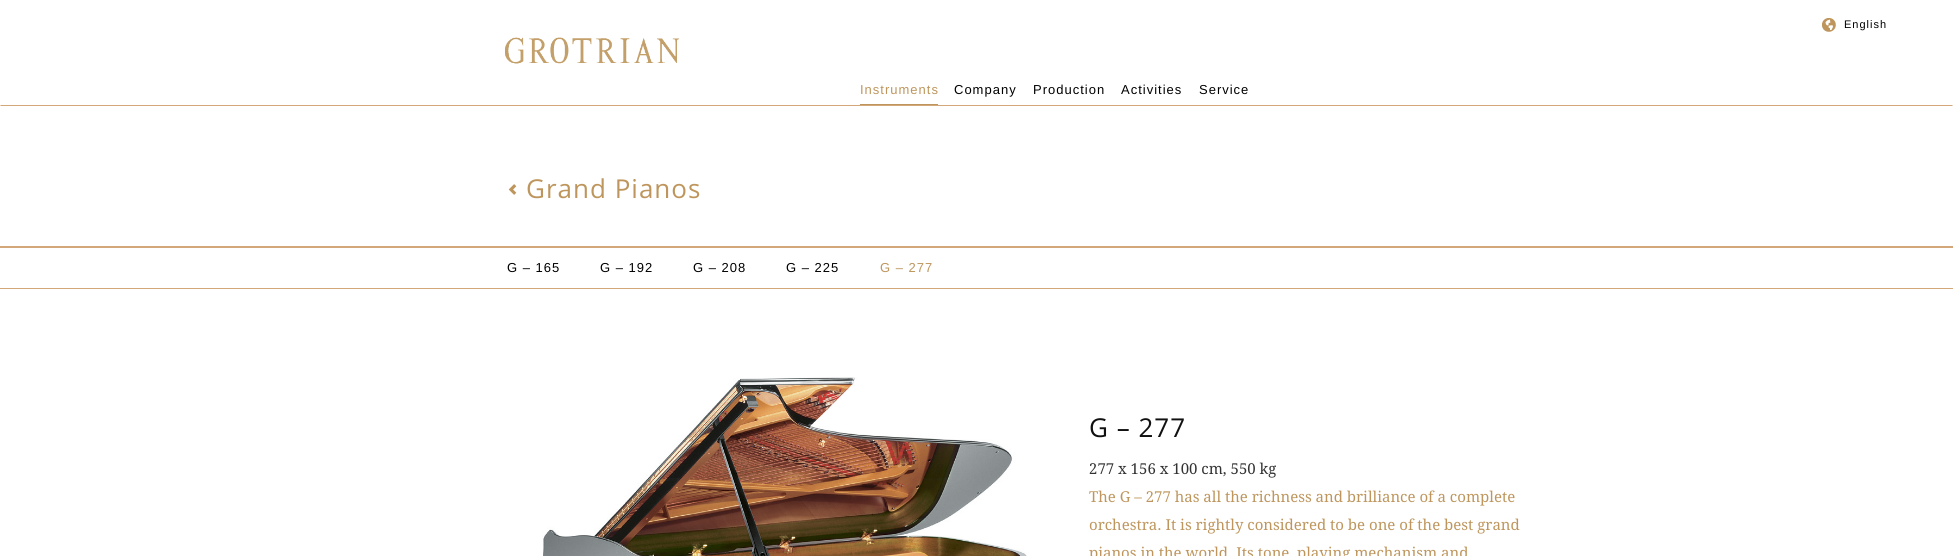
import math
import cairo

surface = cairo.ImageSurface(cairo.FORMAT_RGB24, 1953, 556)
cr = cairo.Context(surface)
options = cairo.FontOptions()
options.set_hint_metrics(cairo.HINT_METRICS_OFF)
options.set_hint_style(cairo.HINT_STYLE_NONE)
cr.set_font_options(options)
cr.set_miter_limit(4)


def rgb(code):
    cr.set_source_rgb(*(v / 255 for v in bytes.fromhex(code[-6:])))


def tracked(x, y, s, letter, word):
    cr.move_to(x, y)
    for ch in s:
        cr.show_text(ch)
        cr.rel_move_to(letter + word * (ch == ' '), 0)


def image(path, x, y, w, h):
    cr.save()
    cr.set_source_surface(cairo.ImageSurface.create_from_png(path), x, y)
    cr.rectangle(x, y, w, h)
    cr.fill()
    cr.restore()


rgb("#ffffff")
cr.paint()
image("img/1.png", 1822, 18, 14, 14)
rgb("#d4a77b")
cr.new_path()
cr.move_to(1953, 106)
cr.line_to(0, 106)
cr.line_to(1, 105)
cr.line_to(1952, 105)
cr.close_path()
cr.fill()
image("img/2.png", 505, 37, 175, 27)
rgb("#be965d")
cr.rectangle(860, 104, 78, 1)
cr.fill()
image("img/3.png", 508, 184, 9, 11)
rgb("#d4a77b")
cr.rectangle(0, 246, 1953, 2)
cr.fill()
cr.rectangle(0, 288, 1953, 1)
cr.fill()
image("img/4.png", 542, 377, 485, 179)
cr.select_font_face("Liberation Sans")
cr.set_font_size(11)
rgb("#000000")
tracked(1844, 28, "English", 1, 0)
cr.set_font_size(13)
rgb("#be965d")
tracked(860, 94, "Instruments", 1, 0)
rgb("#000000")
for x, y, s in [
    (954, 94, "Company"),
    (1033, 94, "Production"),
    (1121, 94, "Activities"),
    (1199, 94, "Service"),
]:
    tracked(x, y, s, 1, 0)
cr.select_font_face("Open Sans")
cr.set_font_size(26)
rgb("#be965d")
tracked(526, 198, "Grand Pianos", 1, 0)
cr.select_font_face("Liberation Sans")
cr.set_font_size(13)
rgb("#000000")
for x, y, s in [
    (507, 272, "G – 165"),
    (600, 272, "G – 192"),
    (693, 272, "G – 208"),
    (786, 272, "G – 225"),
]:
    tracked(x, y, s, 1, 0)
rgb("#be965d")
tracked(880, 272, "G – 277", 1, 0)
cr.select_font_face("Open Sans")
cr.set_font_size(26)
rgb("#111111")
tracked(1089, 437, "G – 277", 1, 0)
cr.select_font_face("Droid Serif")
cr.set_font_size(15)
rgb("#333333")
cr.move_to(1089, 474)
cr.show_text("277 x 156 x 100 cm, 550 kg")
rgb("#be965d")
for x, y, s in [
    (1089, 502, "The G – 277 has all the richness and brilliance of a complete"),
    (1089, 530, "orchestra. It is rightly considered to be one of the best grand"),
    (1089, 558, "pianos in the world. Its tone, playing mechanism and"),
]:
    cr.move_to(x, y)
    cr.show_text(s)
surface.write_to_png("page.png")
